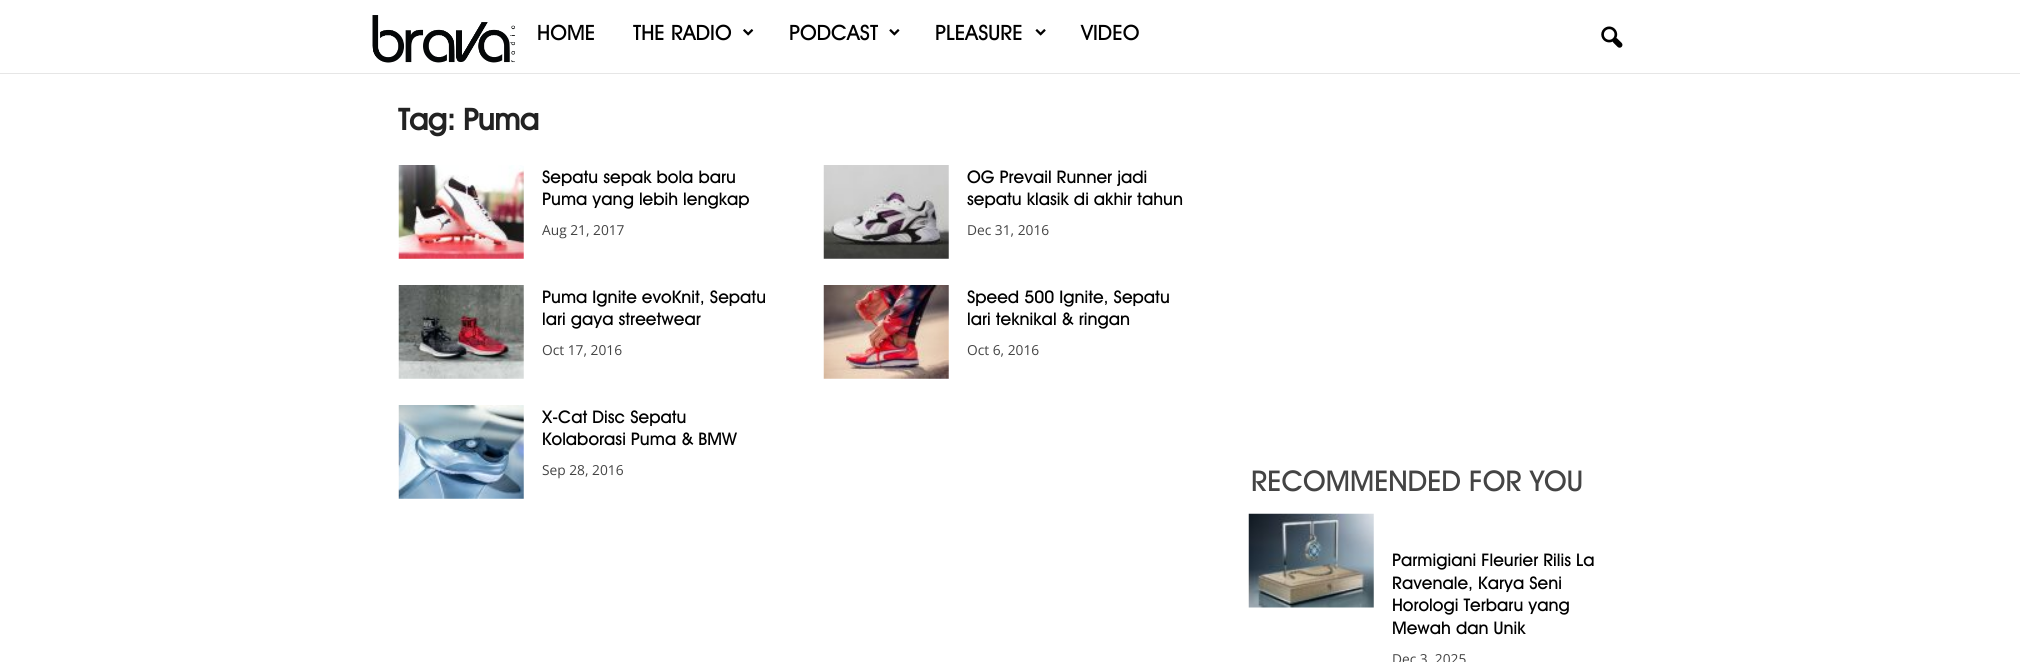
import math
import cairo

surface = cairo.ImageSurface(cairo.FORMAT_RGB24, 2020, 662)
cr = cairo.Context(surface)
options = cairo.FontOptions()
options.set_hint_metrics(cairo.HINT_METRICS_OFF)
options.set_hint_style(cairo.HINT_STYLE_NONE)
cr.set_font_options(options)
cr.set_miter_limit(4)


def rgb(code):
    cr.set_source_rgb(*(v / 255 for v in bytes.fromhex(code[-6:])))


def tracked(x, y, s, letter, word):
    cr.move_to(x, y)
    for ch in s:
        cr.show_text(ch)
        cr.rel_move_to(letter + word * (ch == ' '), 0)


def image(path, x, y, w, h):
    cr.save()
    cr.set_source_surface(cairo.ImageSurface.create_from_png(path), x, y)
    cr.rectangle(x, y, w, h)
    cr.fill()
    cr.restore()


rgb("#ffffff")
cr.paint()
rgb("#e6e6e6")
cr.rectangle(0, 73, 2020, 1)
cr.fill()
image("img/1.png", 372, 15, 143, 48)
image("img/2.png", 743, 29, 11, 7)
image("img/3.png", 889, 29, 11, 7)
image("img/4.png", 1035, 29, 11, 7)
image("img/5.png", 1601, 26, 22, 22)
image("img/6.png", 398, 165, 126, 94)
image("img/7.png", 823, 165, 126, 94)
image("img/8.png", 398, 285, 126, 94)
image("img/9.png", 823, 285, 126, 94)
image("img/10.png", 398, 405, 126, 94)
image("img/11.png", 1248, 513, 126, 95)
cr.select_font_face("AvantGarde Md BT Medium")
cr.set_font_size(21.25)
rgb("#000000")
for x, y, s in [
    (537, 40, "HOME"),
    (633, 40, "THE RADIO"),
    (789, 40, "PODCAST"),
    (935, 40, "PLEASURE"),
    (1081, 40, "VIDEO"),
]:
    cr.move_to(x, y)
    cr.show_text(s)
cr.select_font_face("AvantGarde Md BT", cairo.FONT_SLANT_NORMAL, cairo.FONT_WEIGHT_BOLD)
cr.set_font_size(30)
rgb("#222222")
tracked(398, 130, "Tag: Puma", -0.5, 0)
cr.select_font_face("AvantGarde Md BT Medium")
cr.set_font_size(17.5)
rgb("#000000")
cr.move_to(542, 183)
cr.show_text("Sepatu sepak bola baru")
cr.move_to(542, 205)
cr.show_text("Puma yang lebih lengkap")
cr.select_font_face("Open Sans")
cr.set_font_size(13.75)
rgb("#444444")
cr.move_to(542, 235)
cr.show_text("Aug 21, 2017")
cr.select_font_face("AvantGarde Md BT Medium")
cr.set_font_size(17.5)
rgb("#000000")
cr.move_to(967, 183)
cr.show_text("OG Prevail Runner jadi")
cr.move_to(967, 205)
cr.show_text("sepatu klasik di akhir tahun")
cr.select_font_face("Open Sans")
cr.set_font_size(13.75)
rgb("#444444")
cr.move_to(967, 235)
cr.show_text("Dec 31, 2016")
cr.select_font_face("AvantGarde Md BT Medium")
cr.set_font_size(17.5)
rgb("#000000")
cr.move_to(542, 303)
cr.show_text("Puma Ignite evoKnit, Sepatu")
cr.move_to(542, 325)
cr.show_text("lari gaya streetwear")
cr.select_font_face("Open Sans")
cr.set_font_size(13.75)
rgb("#444444")
cr.move_to(542, 355)
cr.show_text("Oct 17, 2016")
cr.select_font_face("AvantGarde Md BT Medium")
cr.set_font_size(17.5)
rgb("#000000")
cr.move_to(967, 303)
cr.show_text("Speed 500 Ignite, Sepatu")
cr.move_to(967, 325)
cr.show_text("lari teknikal & ringan")
cr.select_font_face("Open Sans")
cr.set_font_size(13.75)
rgb("#444444")
cr.move_to(967, 355)
cr.show_text("Oct 6, 2016")
cr.select_font_face("AvantGarde Md BT Medium")
cr.set_font_size(17.5)
rgb("#000000")
cr.move_to(542, 423)
cr.show_text("X-Cat Disc Sepatu")
cr.move_to(542, 445)
cr.show_text("Kolaborasi Puma & BMW")
cr.select_font_face("Open Sans")
cr.set_font_size(13.75)
rgb("#444444")
cr.move_to(542, 475)
cr.show_text("Sep 28, 2016")
cr.select_font_face("AvantGarde Md BT Medium")
cr.set_font_size(28.75)
cr.move_to(1251, 491)
cr.show_text("RECOMMENDED FOR YOU")
cr.set_font_size(17.5)
rgb("#000000")
for x, y, s in [
    (1392, 566, "Parmigiani Fleurier Rilis La"),
    (1392, 589, "Ravenale, Karya Seni"),
    (1392, 611, "Horologi Terbaru yang"),
    (1392, 634, "Mewah dan Unik"),
]:
    cr.move_to(x, y)
    cr.show_text(s)
cr.select_font_face("Open Sans")
cr.set_font_size(13.75)
rgb("#444444")
cr.move_to(1392, 664)
cr.show_text("Dec 3, 2025")
surface.write_to_png("page.png")
